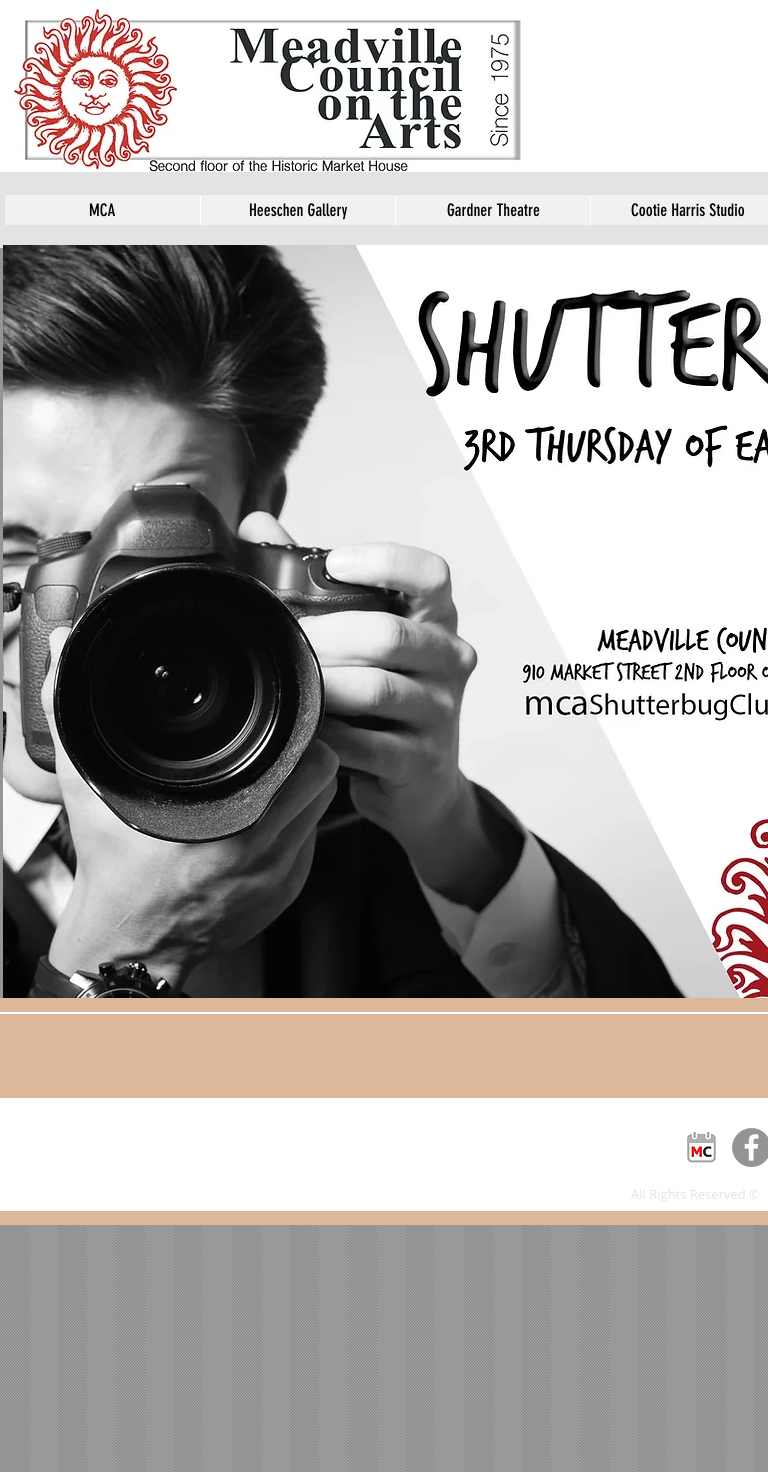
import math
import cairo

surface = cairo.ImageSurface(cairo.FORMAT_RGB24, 768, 1472)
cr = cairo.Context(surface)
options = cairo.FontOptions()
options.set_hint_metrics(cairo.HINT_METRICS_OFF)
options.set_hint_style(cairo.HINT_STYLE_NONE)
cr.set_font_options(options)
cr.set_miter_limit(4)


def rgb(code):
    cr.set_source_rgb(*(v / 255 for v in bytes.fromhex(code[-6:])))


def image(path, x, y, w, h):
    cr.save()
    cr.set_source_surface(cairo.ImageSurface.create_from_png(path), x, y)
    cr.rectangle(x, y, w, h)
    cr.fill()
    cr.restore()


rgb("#a7a7a7")
cr.paint()
rgb("#ffffff")
cr.rectangle(0, 0, 768, 172)
cr.fill()
image("img/1.png", 13, 8, 508, 164)
for x, y, w, h, color in [
    (0, 172, 768, 76, "#e3e3e3"),
    (5, 195, 763, 30, "#f1f1f1"),
    (200, 195, 1, 30, "#ffffff"),
    (395, 195, 1, 30, "#ffffff"),
    (590, 195, 1, 30, "#ffffff"),
]:
    rgb(color)
    cr.rectangle(x, y, w, h)
    cr.fill()
image("img/5.png", 0, 248, 768, 1224)
image("img/2.png", 3, 245, 765, 753)
for x, y, w, h, color in [
    (0, 998, 768, 227, "#dbb89a"),
    (0, 1012, 768, 2, "#ffffff"),
    (0, 1098, 768, 113, "#ffffff"),
]:
    rgb(color)
    cr.rectangle(x, y, w, h)
    cr.fill()
image("img/3.png", 687, 1131, 29, 32)
image("img/4.png", 732, 1128, 36, 39)
cr.select_font_face("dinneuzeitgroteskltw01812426")
cr.set_font_size(17)
rgb("#000000")
for x, y, s in [
    (89, 216, "MCA"),
    (249, 216, "Heeschen Gallery"),
    (447, 216, "Gardner Theatre"),
    (631, 216, "Cootie Harris Studio"),
]:
    cr.move_to(x, y)
    cr.show_text(s)
cr.select_font_face("Open Sans")
cr.set_font_size(13)
rgb("#e3e3e3")
cr.move_to(631, 1199)
cr.show_text("All Rights Reserved ©")
surface.write_to_png("page.png")
